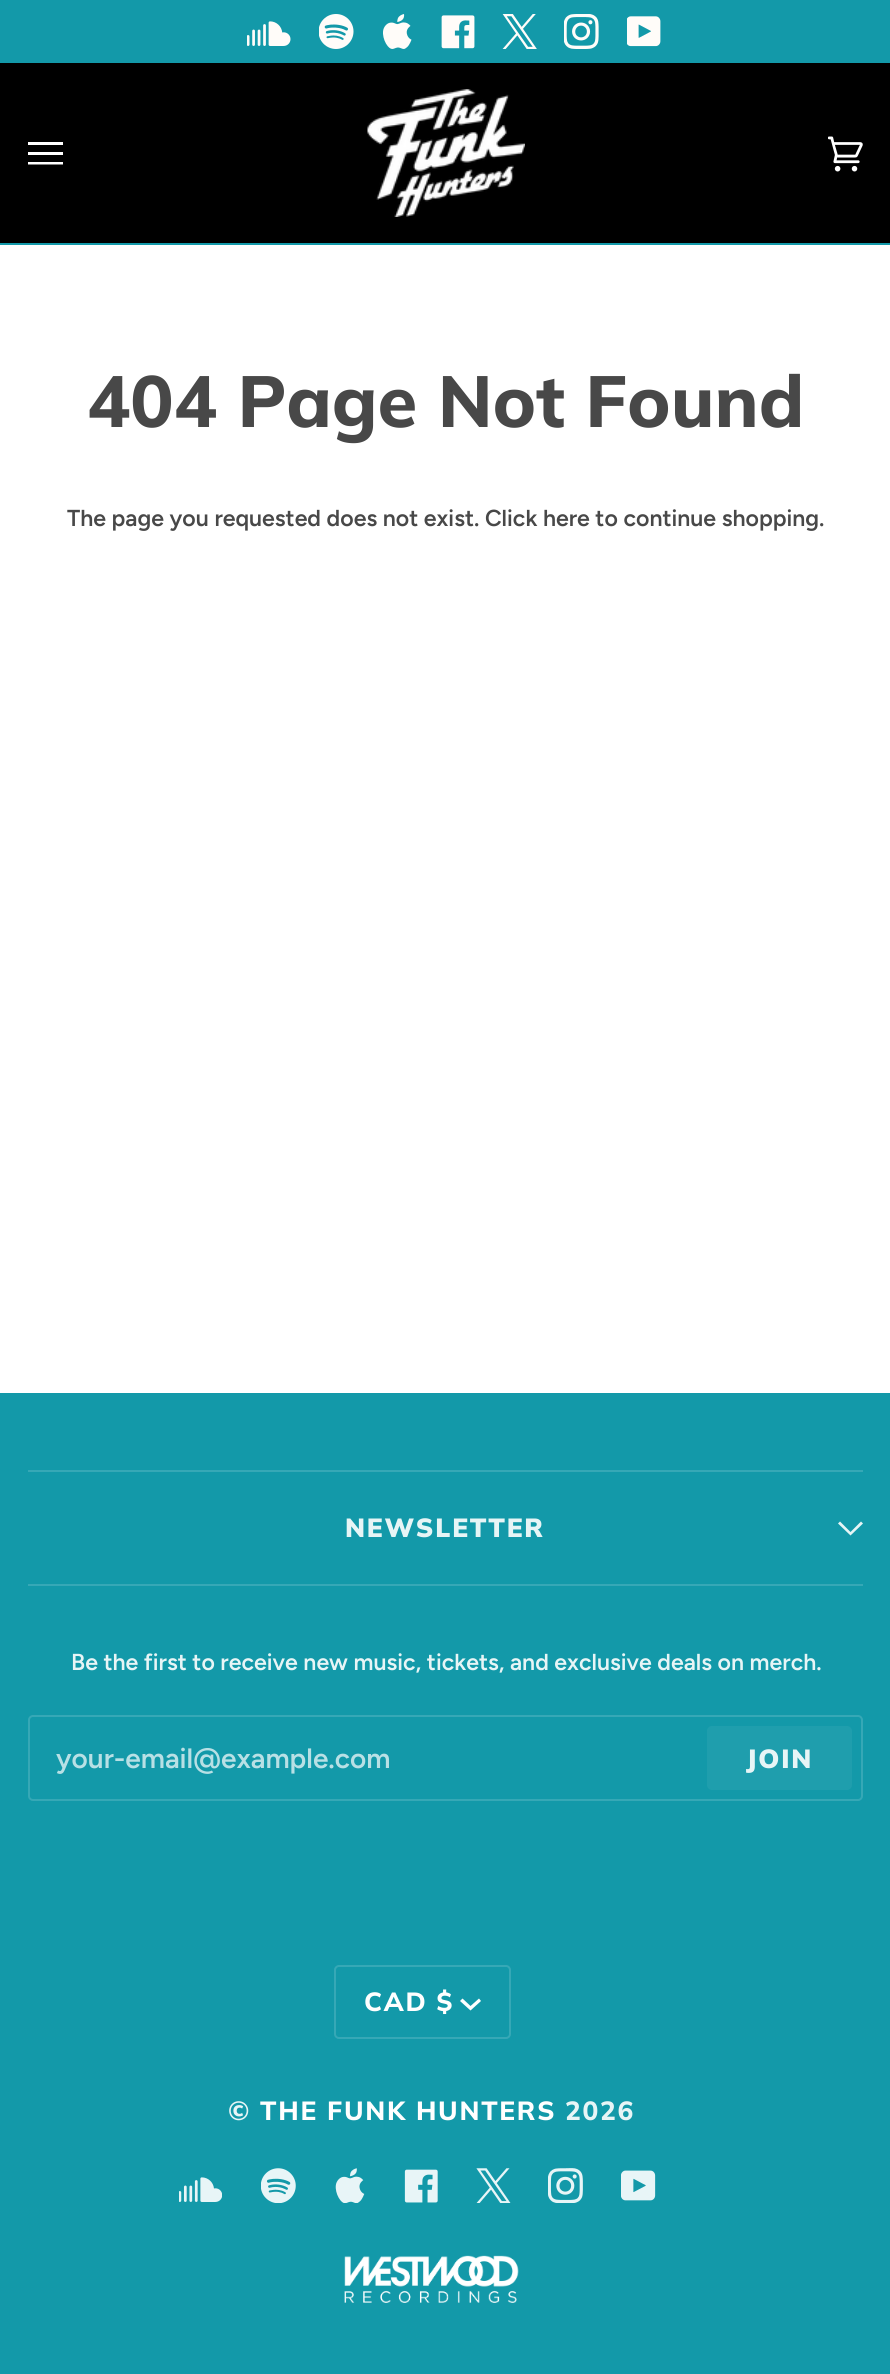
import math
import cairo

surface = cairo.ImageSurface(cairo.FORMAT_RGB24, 890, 2374)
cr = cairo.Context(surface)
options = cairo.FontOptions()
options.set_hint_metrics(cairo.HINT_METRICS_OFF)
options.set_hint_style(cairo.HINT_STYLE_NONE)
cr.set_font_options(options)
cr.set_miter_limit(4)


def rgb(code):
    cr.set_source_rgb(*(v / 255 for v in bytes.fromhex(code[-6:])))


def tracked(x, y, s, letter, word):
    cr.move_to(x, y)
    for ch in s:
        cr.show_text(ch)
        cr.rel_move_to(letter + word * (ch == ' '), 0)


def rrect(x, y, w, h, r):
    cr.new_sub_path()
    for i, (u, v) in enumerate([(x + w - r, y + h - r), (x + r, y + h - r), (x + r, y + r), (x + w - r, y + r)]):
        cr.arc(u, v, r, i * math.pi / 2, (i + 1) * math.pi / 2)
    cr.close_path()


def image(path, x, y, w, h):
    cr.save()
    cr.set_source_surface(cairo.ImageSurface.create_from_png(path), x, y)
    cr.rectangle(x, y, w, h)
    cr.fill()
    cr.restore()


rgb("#ffffff")
cr.paint()
rgb("#1399a9")
cr.rectangle(0, 0, 890, 63)
cr.fill()
image("img/1.png", 247, 21, 44, 25)
image("img/2.png", 319, 14, 35, 35)
image("img/3.png", 383, 14, 29, 35)
image("img/4.png", 441, 15, 34, 34)
image("img/5.png", 502, 14, 35, 35)
image("img/6.png", 564, 14, 35, 35)
image("img/7.png", 627, 16, 34, 31)
rgb("#000000")
cr.rectangle(0, 63, 890, 180)
cr.fill()
rgb("#1399a9")
cr.rectangle(0, 243, 890, 2)
cr.fill()
rgb("#ffffff")
cr.new_path()
cr.move_to(28, 142)
cr.line_to(63, 142)
cr.line_to(63, 145)
cr.line_to(28, 145)
cr.close_path()
cr.move_to(28, 152)
cr.line_to(63, 152)
cr.line_to(63, 155)
cr.line_to(28, 155)
cr.close_path()
cr.move_to(28, 162)
cr.line_to(63, 162)
cr.line_to(63, 164.5)
cr.line_to(28, 164.5)
cr.close_path()
cr.fill()
image("img/8.png", 367, 89, 158, 128)
image("img/9.png", 828, 136, 35, 36)
for x, y, w, h, color in [
    (0, 1393, 890, 981, "#1399a9"),
    (28, 1470, 835, 2, "#36a8b6"),
    (28, 1584, 835, 2, "#36a8b6"),
]:
    rgb(color)
    cr.rectangle(x, y, w, h)
    cr.fill()
rgb("#e7f5f6")
cr.set_fill_rule(cairo.FILL_RULE_EVEN_ODD)
cr.new_path()
cr.move_to(850.5, 1532)
cr.line_to(861, 1521.5)
cr.line_to(863, 1523.5)
cr.line_to(850.5, 1535.5)
cr.line_to(838, 1523.5)
cr.line_to(840, 1521.5)
cr.close_path()
cr.fill()
rrect(29, 1716, 833, 84, 4)
rgb("#36a8b6")
cr.stroke()
rgb("#1f9ead")
rrect(707, 1726, 145, 64, 5)
cr.fill()
rrect(335, 1966, 175, 72, 4)
rgb("#36a8b6")
cr.stroke()
rgb("#ffffff")
cr.new_path()
cr.move_to(460, 2001)
cr.line_to(462.5, 1998.5)
cr.line_to(470.5, 2006)
cr.line_to(479, 1998.5)
cr.line_to(481, 2001)
cr.line_to(470.5, 2010.5)
cr.close_path()
cr.fill()
image("img/10.png", 179, 2177, 43, 25)
image("img/11.png", 261, 2168, 35, 35)
image("img/12.png", 335, 2168, 30, 35)
image("img/13.png", 404, 2169, 34, 34)
image("img/14.png", 476, 2168, 35, 35)
image("img/15.png", 548, 2168, 35, 35)
image("img/16.png", 621, 2170, 35, 31)
image("img/17.png", 344, 2255, 175, 48)
cr.select_font_face("Muli ExtraBold")
cr.set_font_size(72.25)
rgb("#484848")
cr.move_to(87, 427)
cr.show_text("404 Page Not Found")
cr.select_font_face("Figtree SemiBold")
cr.set_font_size(23.1)
cr.move_to(67, 526)
cr.show_text("The page you requested does not exist. Click here to continue shopping.")
cr.select_font_face("Muli Black")
cr.set_font_size(26.25)
rgb("#e7f5f6")
tracked(345, 1537, "NEWSLETTER", 1.75, 0)
cr.select_font_face("Figtree SemiBold")
cr.set_font_size(23.1)
cr.move_to(71, 1670)
cr.show_text("Be the first to receive new music, tickets, and exclusive deals on merch.")
cr.set_font_size(28)
rgb("#b8e0e5")
cr.move_to(56, 1768)
cr.show_text("your-email@example.com")
cr.select_font_face("Muli Black")
cr.set_font_size(26.25)
rgb("#e7f5f6")
tracked(746, 1768, "JOIN", 1.75, 0)
cr.select_font_face("Muli ExtraBold")
rgb("#ffffff")
tracked(364, 2011, "CAD $", 1.75, 0)
rgb("#e7f5f6")
tracked(228, 2120, "©", 1.75, 0)
rgb("#ffffff")
tracked(260, 2120, "THE FUNK HUNTERS", 1.75, 0)
rgb("#e7f5f6")
tracked(565, 2120, "2026", 1.75, 0)
surface.write_to_png("page.png")
